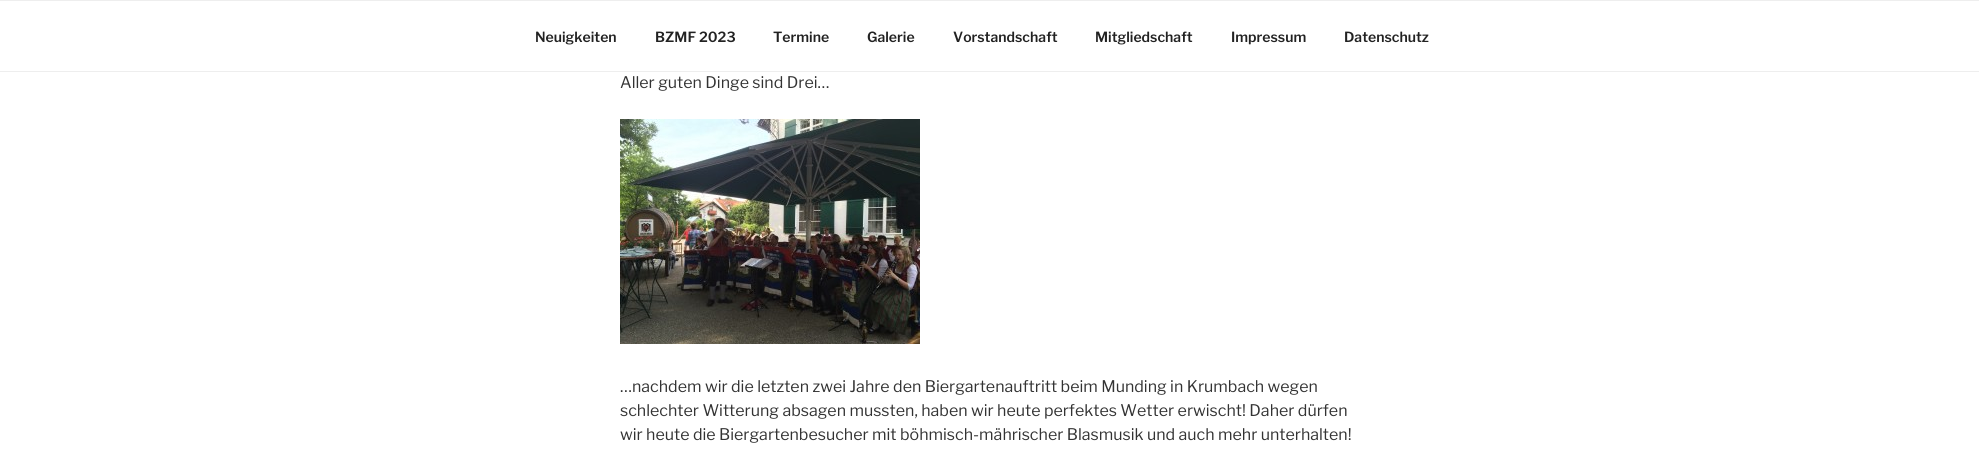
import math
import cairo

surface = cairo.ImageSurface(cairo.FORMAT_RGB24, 1979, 455)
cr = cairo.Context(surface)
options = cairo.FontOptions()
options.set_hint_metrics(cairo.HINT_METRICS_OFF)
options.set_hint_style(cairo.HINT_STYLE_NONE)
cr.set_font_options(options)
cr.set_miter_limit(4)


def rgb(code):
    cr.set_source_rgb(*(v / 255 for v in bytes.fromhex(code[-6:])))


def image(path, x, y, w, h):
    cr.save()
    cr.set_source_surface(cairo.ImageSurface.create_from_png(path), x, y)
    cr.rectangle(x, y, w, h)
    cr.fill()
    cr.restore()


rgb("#ffffff")
cr.paint()
rgb("#eeeeee")
cr.rectangle(0, 0, 1979, 1)
cr.fill()
cr.rectangle(0, 71, 1979, 1)
cr.fill()
image("img/1.png", 620, 119, 300, 225)
cr.select_font_face("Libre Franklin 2 Thin")
cr.set_font_size(14)
rgb("#222222")
for x, y, s in [
    (535, 42, "Neuigkeiten"),
    (655, 42, "BZMF 2023"),
    (773, 42, "Termine"),
    (867, 42, "Galerie"),
    (953, 42, "Vorstandschaft"),
    (1095, 42, "Mitgliedschaft"),
    (1231, 42, "Impressum"),
    (1344, 42, "Datenschutz"),
]:
    cr.move_to(x, y)
    cr.show_text(s)
cr.select_font_face("Libre Franklin Thin")
cr.set_font_size(16)
rgb("#333333")
for x, y, s in [
    (620, 88, "Aller guten Dinge sind Drei…"),
    (620, 392, "…nachdem wir die letzten zwei Jahre den Biergartenauftritt beim Munding in Krumbach wegen"),
    (620, 416, "schlechter Witterung absagen mussten, haben wir heute perfektes Wetter erwischt! Daher dürfen"),
    (620, 440, "wir heute die Biergartenbesucher mit böhmisch-mährischer Blasmusik und auch mehr unterhalten!"),
]:
    cr.move_to(x, y)
    cr.show_text(s)
surface.write_to_png("page.png")
